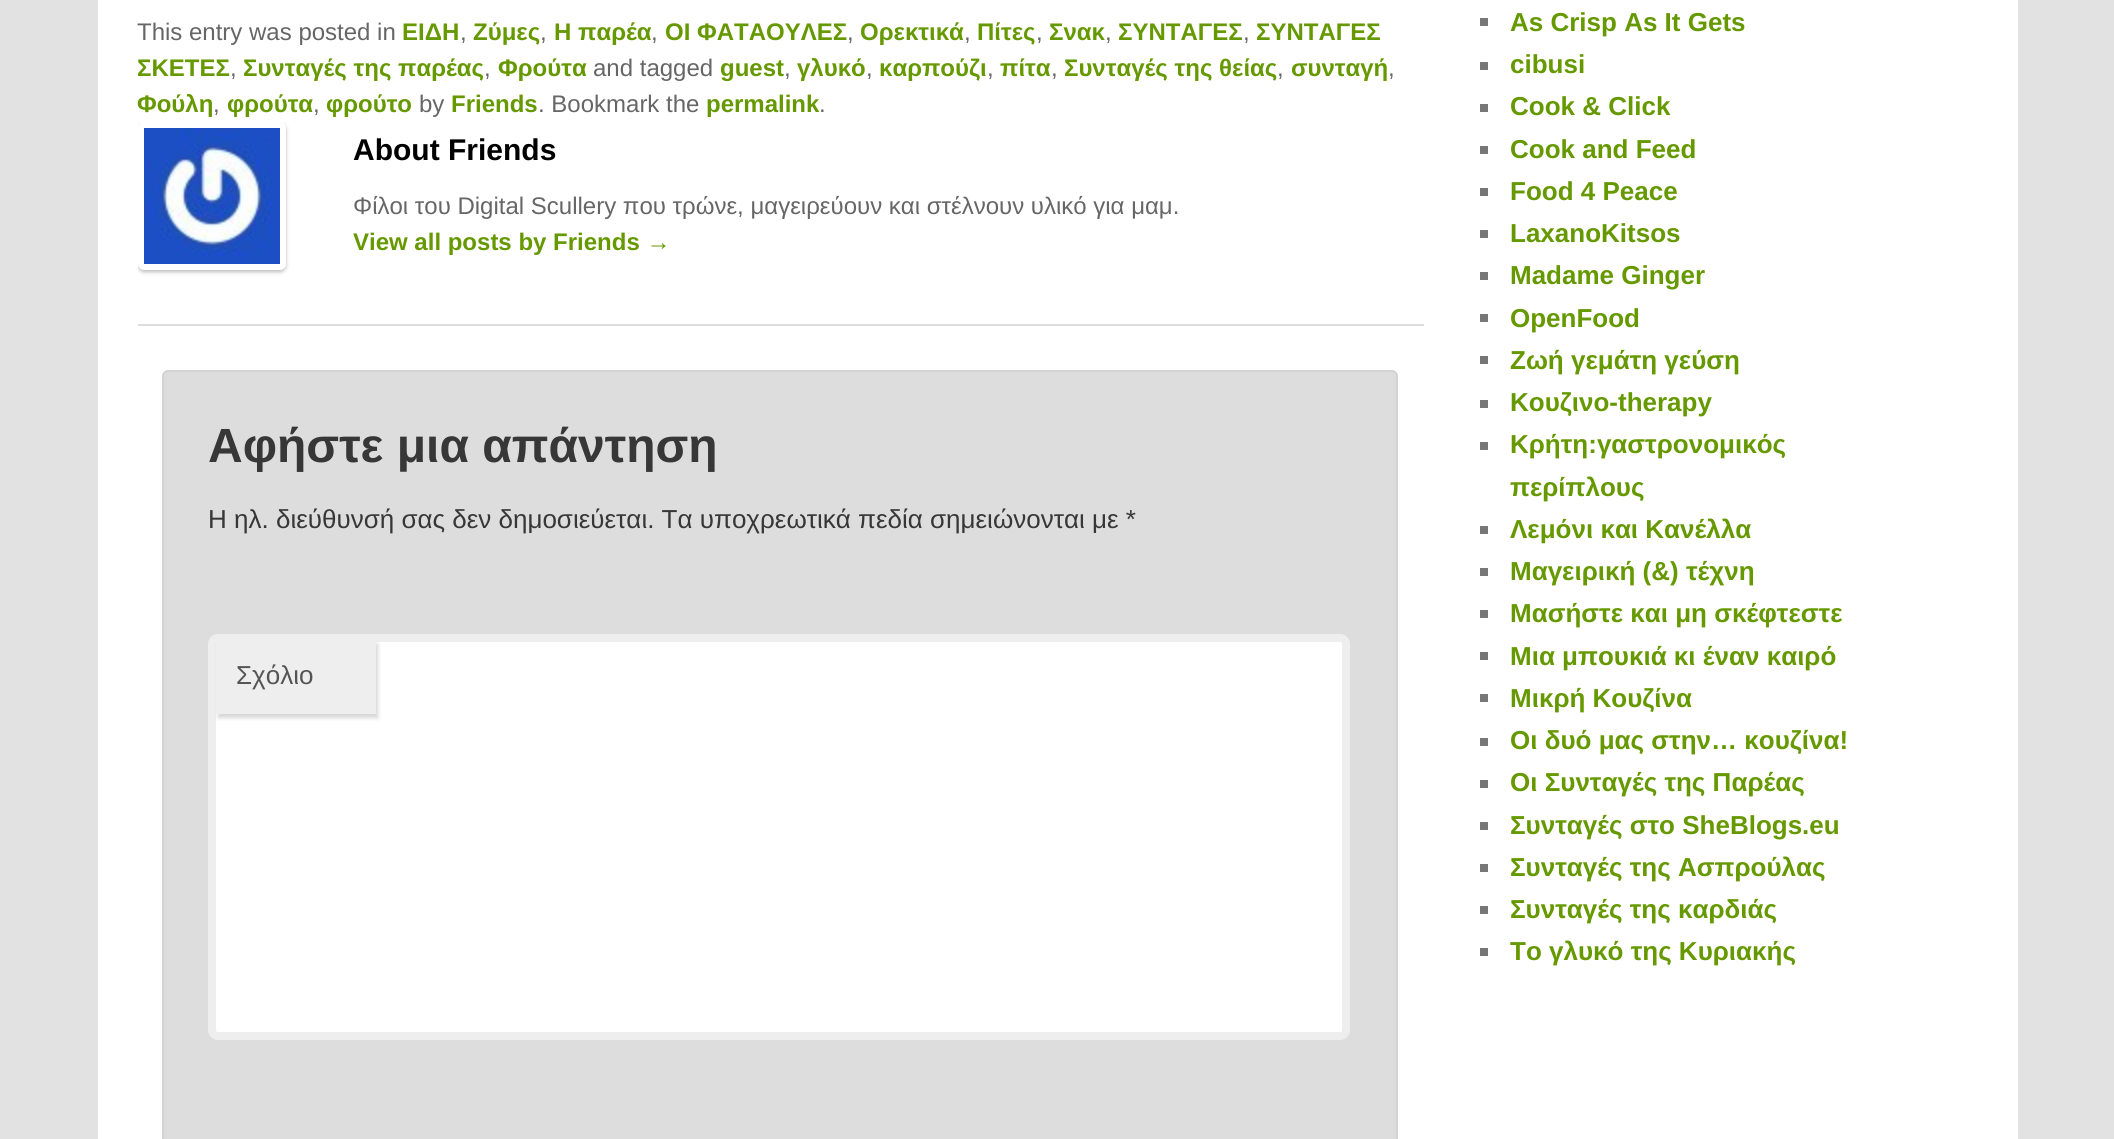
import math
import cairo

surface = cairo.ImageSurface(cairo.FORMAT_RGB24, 2114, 1139)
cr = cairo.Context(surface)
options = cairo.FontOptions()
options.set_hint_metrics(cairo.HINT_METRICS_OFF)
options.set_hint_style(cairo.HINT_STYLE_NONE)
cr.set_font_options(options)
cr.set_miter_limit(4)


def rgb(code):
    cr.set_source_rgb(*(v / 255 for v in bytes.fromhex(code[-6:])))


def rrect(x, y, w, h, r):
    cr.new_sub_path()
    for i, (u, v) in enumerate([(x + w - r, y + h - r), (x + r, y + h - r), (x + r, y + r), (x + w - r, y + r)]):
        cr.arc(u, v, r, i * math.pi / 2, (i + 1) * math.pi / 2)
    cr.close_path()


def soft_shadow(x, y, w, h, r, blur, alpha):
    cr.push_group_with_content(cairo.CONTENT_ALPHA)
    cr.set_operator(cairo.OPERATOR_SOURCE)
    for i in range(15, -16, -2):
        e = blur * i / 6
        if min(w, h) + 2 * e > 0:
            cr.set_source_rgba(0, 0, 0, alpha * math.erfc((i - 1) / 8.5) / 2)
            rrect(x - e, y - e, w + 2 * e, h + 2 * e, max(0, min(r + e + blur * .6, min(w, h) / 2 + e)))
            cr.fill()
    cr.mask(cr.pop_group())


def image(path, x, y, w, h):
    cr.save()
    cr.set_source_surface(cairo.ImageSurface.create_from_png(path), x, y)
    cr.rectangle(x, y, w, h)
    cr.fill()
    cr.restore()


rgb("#e2e2e2")
cr.paint()
rgb("#ffffff")
cr.rectangle(98, 0, 1920, 1139)
cr.fill()
rgb("#dddddd")
cr.rectangle(138, 324, 1286, 2)
cr.fill()
cr.save()
cr.rectangle(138, 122, 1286, 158)
cr.clip()
rgb("#bbbbbb")
soft_shadow(138, 124, 148, 148, 6, 2, 1)
cr.restore()
rgb("#ffffff")
rrect(138, 122, 148, 148, 6)
cr.fill()
image("img/1.png", 144, 128, 136, 136)
rgb("#dddddd")
rrect(163, 371, 1234, 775, 5)
cr.fill_preserve()
rgb("#d3d3d3")
cr.stroke()
rgb("#ffffff")
rrect(212, 638, 1134, 398, 6)
cr.fill_preserve()
rgb("#eeeeee")
cr.set_line_width(8)
cr.stroke()
rgb("#cccccc")
soft_shadow(218, 644, 160, 74, 0, 2, 0.8)
for x, y, w, h, color in [
    (216, 641, 160, 73, "#eeeeee"),
    (1480, 18, 8, 8, "#777777"),
    (1480, 62, 8, 8, "#777777"),
    (1480, 104, 8, 8, "#777777"),
    (1480, 146, 8, 8, "#777777"),
    (1480, 188, 8, 8, "#777777"),
    (1480, 230, 8, 8, "#777777"),
    (1480, 272, 8, 8, "#777777"),
    (1480, 314, 8, 8, "#777777"),
    (1480, 356, 8, 8, "#777777"),
    (1480, 400, 8, 8, "#777777"),
    (1480, 442, 8, 8, "#777777"),
    (1480, 526, 8, 8, "#777777"),
    (1480, 568, 8, 8, "#777777"),
    (1480, 610, 8, 8, "#777777"),
    (1480, 652, 8, 8, "#777777"),
    (1480, 694, 8, 8, "#777777"),
    (1480, 738, 8, 8, "#777777"),
    (1480, 780, 8, 8, "#777777"),
    (1480, 822, 8, 8, "#777777"),
    (1480, 864, 8, 8, "#777777"),
    (1480, 906, 8, 8, "#777777"),
    (1480, 948, 8, 8, "#777777"),
]:
    rgb(color)
    cr.rectangle(x, y, w, h)
    cr.fill()
cr.select_font_face("Liberation Sans")
cr.set_font_size(24)
rgb("#666666")
cr.move_to(137, 40)
cr.show_text("This entry was posted in")
cr.select_font_face("Liberation Sans", cairo.FONT_SLANT_NORMAL, cairo.FONT_WEIGHT_BOLD)
rgb("#669900")
cr.move_to(402, 40)
cr.show_text("ΕΙΔΗ")
cr.select_font_face("Liberation Sans")
rgb("#666666")
cr.move_to(460, 40)
cr.show_text(",")
cr.select_font_face("Liberation Sans", cairo.FONT_SLANT_NORMAL, cairo.FONT_WEIGHT_BOLD)
rgb("#669900")
cr.move_to(473, 40)
cr.show_text("Ζύμες")
cr.select_font_face("Liberation Sans")
rgb("#666666")
cr.move_to(540, 40)
cr.show_text(",")
cr.select_font_face("Liberation Sans", cairo.FONT_SLANT_NORMAL, cairo.FONT_WEIGHT_BOLD)
rgb("#669900")
cr.move_to(554, 40)
cr.show_text("Η παρέα")
cr.select_font_face("Liberation Sans")
rgb("#666666")
cr.move_to(651, 40)
cr.show_text(",")
cr.select_font_face("Liberation Sans", cairo.FONT_SLANT_NORMAL, cairo.FONT_WEIGHT_BOLD)
rgb("#669900")
cr.move_to(665, 40)
cr.show_text("ΟΙ ΦΑΤΑΟΥΛΕΣ")
cr.select_font_face("Liberation Sans")
rgb("#666666")
cr.move_to(847, 40)
cr.show_text(",")
cr.select_font_face("Liberation Sans", cairo.FONT_SLANT_NORMAL, cairo.FONT_WEIGHT_BOLD)
rgb("#669900")
cr.move_to(860, 40)
cr.show_text("Ορεκτικά")
cr.select_font_face("Liberation Sans")
rgb("#666666")
cr.move_to(964, 40)
cr.show_text(",")
cr.select_font_face("Liberation Sans", cairo.FONT_SLANT_NORMAL, cairo.FONT_WEIGHT_BOLD)
rgb("#669900")
cr.move_to(977, 40)
cr.show_text("Πίτες")
cr.select_font_face("Liberation Sans")
rgb("#666666")
cr.move_to(1036, 40)
cr.show_text(",")
cr.select_font_face("Liberation Sans", cairo.FONT_SLANT_NORMAL, cairo.FONT_WEIGHT_BOLD)
rgb("#669900")
cr.move_to(1049, 40)
cr.show_text("Σνακ")
cr.select_font_face("Liberation Sans")
rgb("#666666")
cr.move_to(1105, 40)
cr.show_text(",")
cr.select_font_face("Liberation Sans", cairo.FONT_SLANT_NORMAL, cairo.FONT_WEIGHT_BOLD)
rgb("#669900")
cr.move_to(1118, 40)
cr.show_text("ΣΥΝΤΑΓΕΣ")
cr.select_font_face("Liberation Sans")
rgb("#666666")
cr.move_to(1243, 40)
cr.show_text(",")
cr.select_font_face("Liberation Sans", cairo.FONT_SLANT_NORMAL, cairo.FONT_WEIGHT_BOLD)
rgb("#669900")
cr.move_to(1256, 40)
cr.show_text("ΣΥΝΤΑΓΕΣ")
cr.move_to(137, 76)
cr.show_text("ΣΚΕΤΕΣ")
cr.select_font_face("Liberation Sans")
rgb("#666666")
cr.move_to(230, 76)
cr.show_text(",")
cr.select_font_face("Liberation Sans", cairo.FONT_SLANT_NORMAL, cairo.FONT_WEIGHT_BOLD)
rgb("#669900")
cr.move_to(243, 76)
cr.show_text("Συνταγές της παρέας")
cr.select_font_face("Liberation Sans")
rgb("#666666")
cr.move_to(484, 76)
cr.show_text(",")
cr.select_font_face("Liberation Sans", cairo.FONT_SLANT_NORMAL, cairo.FONT_WEIGHT_BOLD)
rgb("#669900")
cr.move_to(498, 76)
cr.show_text("Φρούτα")
cr.select_font_face("Liberation Sans")
rgb("#666666")
cr.move_to(593, 76)
cr.show_text("and tagged")
cr.select_font_face("Liberation Sans", cairo.FONT_SLANT_NORMAL, cairo.FONT_WEIGHT_BOLD)
rgb("#669900")
cr.move_to(720, 76)
cr.show_text("guest")
cr.select_font_face("Liberation Sans")
rgb("#666666")
cr.move_to(784, 76)
cr.show_text(",")
cr.select_font_face("Liberation Sans", cairo.FONT_SLANT_NORMAL, cairo.FONT_WEIGHT_BOLD)
rgb("#669900")
cr.move_to(797, 76)
cr.show_text("γλυκό")
cr.select_font_face("Liberation Sans")
rgb("#666666")
cr.move_to(866, 76)
cr.show_text(",")
cr.select_font_face("Liberation Sans", cairo.FONT_SLANT_NORMAL, cairo.FONT_WEIGHT_BOLD)
rgb("#669900")
cr.move_to(879, 76)
cr.show_text("καρπούζι")
cr.select_font_face("Liberation Sans")
rgb("#666666")
cr.move_to(987, 76)
cr.show_text(",")
cr.select_font_face("Liberation Sans", cairo.FONT_SLANT_NORMAL, cairo.FONT_WEIGHT_BOLD)
rgb("#669900")
cr.move_to(1000, 76)
cr.show_text("πίτα")
cr.select_font_face("Liberation Sans")
rgb("#666666")
cr.move_to(1051, 76)
cr.show_text(",")
cr.select_font_face("Liberation Sans", cairo.FONT_SLANT_NORMAL, cairo.FONT_WEIGHT_BOLD)
rgb("#669900")
cr.move_to(1064, 76)
cr.show_text("Συνταγές της θείας")
cr.select_font_face("Liberation Sans")
rgb("#666666")
cr.move_to(1277, 76)
cr.show_text(",")
cr.select_font_face("Liberation Sans", cairo.FONT_SLANT_NORMAL, cairo.FONT_WEIGHT_BOLD)
rgb("#669900")
cr.move_to(1291, 76)
cr.show_text("συνταγή")
cr.select_font_face("Liberation Sans")
rgb("#666666")
cr.move_to(1388, 76)
cr.show_text(",")
cr.select_font_face("Liberation Sans", cairo.FONT_SLANT_NORMAL, cairo.FONT_WEIGHT_BOLD)
rgb("#669900")
cr.move_to(137, 112)
cr.show_text("Φούλη")
cr.select_font_face("Liberation Sans")
rgb("#666666")
cr.move_to(213, 112)
cr.show_text(",")
cr.select_font_face("Liberation Sans", cairo.FONT_SLANT_NORMAL, cairo.FONT_WEIGHT_BOLD)
rgb("#669900")
cr.move_to(227, 112)
cr.show_text("φρούτα")
cr.select_font_face("Liberation Sans")
rgb("#666666")
cr.move_to(313, 112)
cr.show_text(",")
cr.select_font_face("Liberation Sans", cairo.FONT_SLANT_NORMAL, cairo.FONT_WEIGHT_BOLD)
rgb("#669900")
cr.move_to(326, 112)
cr.show_text("φρούτο")
cr.select_font_face("Liberation Sans")
rgb("#666666")
cr.move_to(419, 112)
cr.show_text("by")
cr.select_font_face("Liberation Sans", cairo.FONT_SLANT_NORMAL, cairo.FONT_WEIGHT_BOLD)
rgb("#669900")
cr.move_to(451, 112)
cr.show_text("Friends")
cr.select_font_face("Liberation Sans")
rgb("#666666")
cr.move_to(538, 112)
cr.show_text(". Bookmark the")
cr.select_font_face("Liberation Sans", cairo.FONT_SLANT_NORMAL, cairo.FONT_WEIGHT_BOLD)
rgb("#669900")
cr.move_to(706, 112)
cr.show_text("permalink")
cr.select_font_face("Liberation Sans")
rgb("#666666")
cr.move_to(819, 112)
cr.show_text(".")
cr.select_font_face("Liberation Sans", cairo.FONT_SLANT_NORMAL, cairo.FONT_WEIGHT_BOLD)
cr.set_font_size(30)
rgb("#000000")
cr.move_to(353, 160)
cr.show_text("About Friends")
cr.select_font_face("Liberation Sans")
cr.set_font_size(24)
rgb("#666666")
cr.move_to(353, 214)
cr.show_text("Φίλοι του Digital Scullery που τρώνε, μαγειρεύουν και στέλνουν υλικό για μαμ.")
cr.select_font_face("Liberation Sans", cairo.FONT_SLANT_NORMAL, cairo.FONT_WEIGHT_BOLD)
rgb("#669900")
cr.move_to(353, 250)
cr.show_text("View all posts by Friends →")
cr.set_font_size(48)
rgb("#373737")
cr.move_to(208, 462)
cr.show_text("Αφήστε μια απάντηση")
cr.select_font_face("Liberation Sans")
cr.set_font_size(26)
cr.move_to(208, 528)
cr.show_text("Η ηλ. διεύθυνσή σας δεν δημοσιεύεται. Τα υποχρεωτικά πεδία σημειώνονται με *")
rgb("#555555")
cr.move_to(236, 684)
cr.show_text("Σχόλιο")
cr.select_font_face("Liberation Sans", cairo.FONT_SLANT_NORMAL, cairo.FONT_WEIGHT_BOLD)
rgb("#669900")
for x, y, s in [
    (1510, 31, "As Crisp As It Gets"),
    (1510, 73, "cibusi"),
    (1510, 115, "Cook & Click"),
    (1510, 158, "Cook and Feed"),
    (1510, 200, "Food 4 Peace"),
    (1510, 242, "LaxanoKitsos"),
    (1510, 284, "Madame Ginger"),
    (1510, 327, "OpenFood"),
    (1510, 369, "Ζωή γεμάτη γεύση"),
    (1510, 411, "Κουζινο-therapy"),
    (1510, 453, "Κρήτη:γαστρονομικός"),
    (1510, 496, "περίπλους"),
    (1510, 538, "Λεμόνι και Κανέλλα"),
    (1510, 580, "Μαγειρική (&) τέχνη"),
    (1510, 622, "Μασήστε και μη σκέφτεστε"),
    (1510, 665, "Μια μπουκιά κι έναν καιρό"),
    (1510, 707, "Μικρή Κουζίνα"),
    (1510, 749, "Οι δυό μας στην… κουζίνα!"),
    (1510, 791, "Οι Συνταγές της Παρέας"),
    (1510, 834, "Συνταγές στο SheBlogs.eu"),
    (1510, 876, "Συνταγές της Ασπρούλας"),
    (1510, 918, "Συνταγές της καρδιάς"),
    (1510, 960, "Το γλυκό της Κυριακής"),
]:
    cr.move_to(x, y)
    cr.show_text(s)
surface.write_to_png("page.png")
